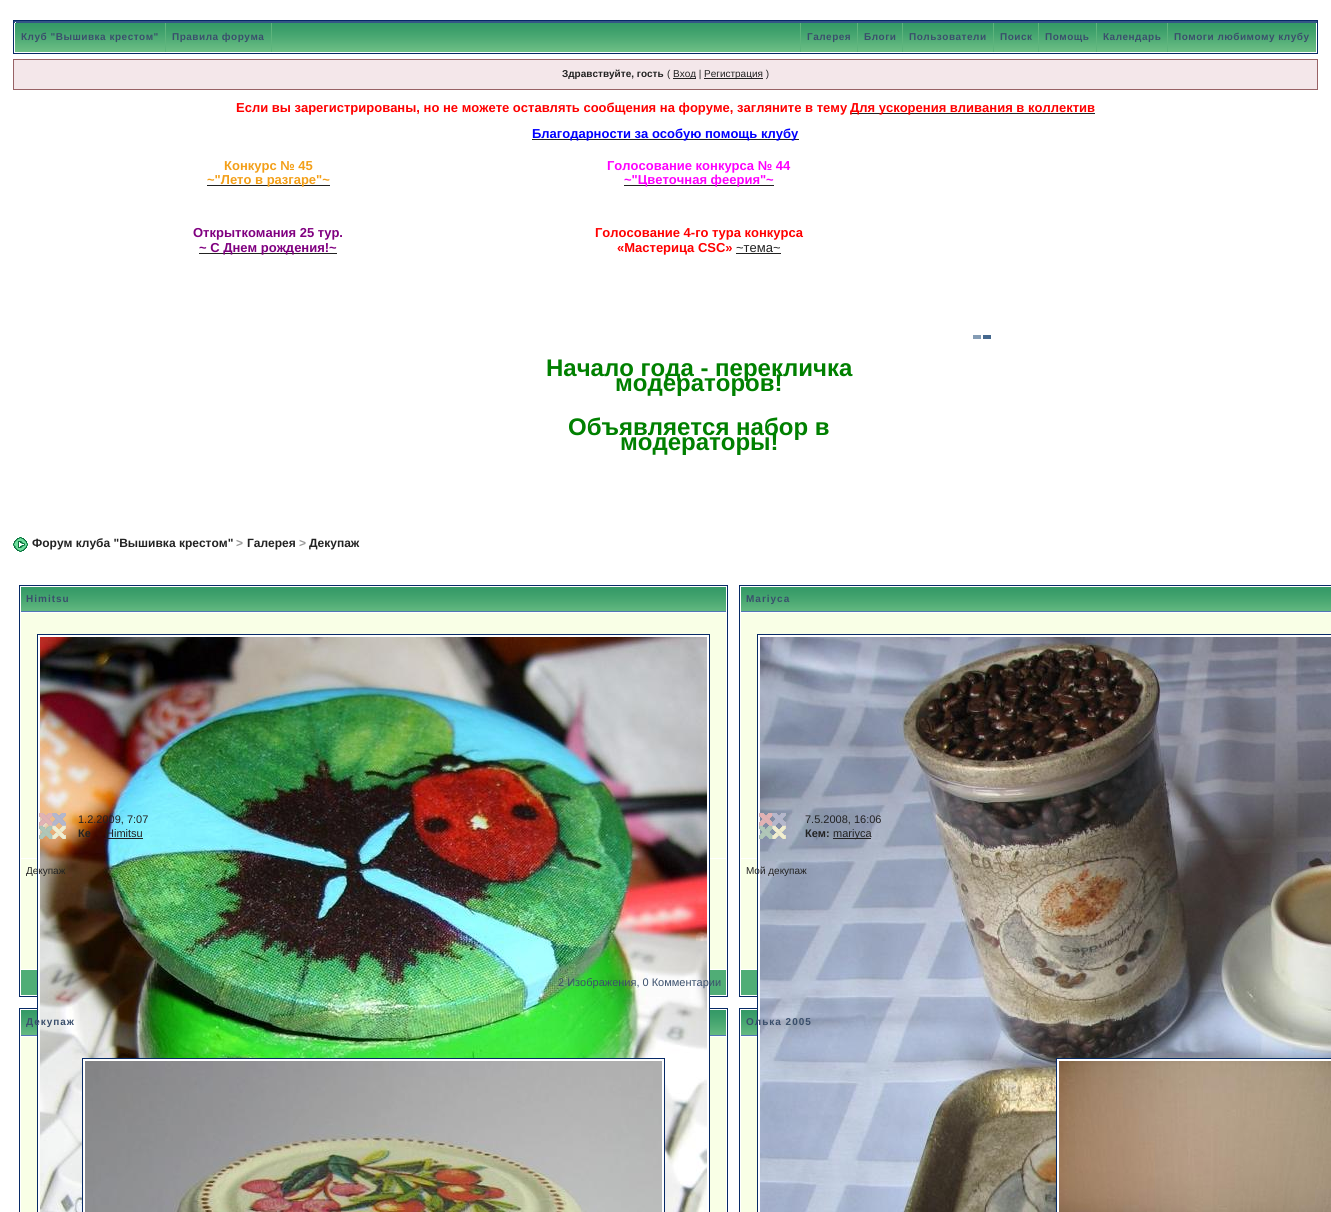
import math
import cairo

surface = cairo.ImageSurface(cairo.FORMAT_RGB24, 1331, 1212)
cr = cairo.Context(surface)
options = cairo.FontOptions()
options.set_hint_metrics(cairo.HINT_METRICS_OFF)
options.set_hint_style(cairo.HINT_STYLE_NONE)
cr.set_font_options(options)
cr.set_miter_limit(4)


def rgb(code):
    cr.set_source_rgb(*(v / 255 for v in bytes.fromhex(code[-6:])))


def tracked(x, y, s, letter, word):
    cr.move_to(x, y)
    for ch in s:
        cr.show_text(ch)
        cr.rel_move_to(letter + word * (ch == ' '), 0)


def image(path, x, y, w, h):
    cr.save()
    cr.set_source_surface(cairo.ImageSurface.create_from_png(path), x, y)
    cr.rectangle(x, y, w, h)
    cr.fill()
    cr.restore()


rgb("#ffffff")
cr.paint()
cr.rectangle(13.5, 20.5, 1304, 33)
rgb("#072a66")
cr.set_line_width(1)
cr.stroke()
rgb("#345487")
cr.rectangle(14, 21, 1303, 2)
cr.fill()
rgb("#fbfcfd")
cr.rectangle(15, 22, 1, 1)
cr.fill()
image("img/1.png", 272, 23, 528, 29)
image("img/2.png", 15, 23, 150, 29)
rgb("#5db47c")
cr.rectangle(165, 23, 1, 29)
cr.fill()
image("img/3.png", 166, 23, 105, 29)
cr.rectangle(271, 23, 1, 29)
cr.fill()
image("img/4.png", 801, 23, 56, 29)
cr.rectangle(800, 23, 1, 29)
cr.fill()
image("img/5.png", 858, 23, 44, 29)
cr.rectangle(857, 23, 1, 29)
cr.fill()
image("img/6.png", 903, 23, 90, 29)
cr.rectangle(902, 23, 1, 29)
cr.fill()
image("img/5.png", 994, 23, 44, 29)
cr.rectangle(993, 23, 1, 29)
cr.fill()
image("img/7.png", 1039, 23, 57, 29)
cr.rectangle(1038, 23, 1, 29)
cr.fill()
image("img/8.png", 1097, 23, 70, 29)
cr.rectangle(1096, 23, 1, 29)
cr.fill()
image("img/9.png", 1168, 23, 148, 29)
cr.rectangle(1167, 23, 1, 29)
cr.fill()
rgb("#f4e7ea")
cr.rectangle(13.5, 59.5, 1304, 30)
cr.fill_preserve()
rgb("#986265")
cr.stroke()
for x, y, w, h, color in [
    (673, 78, 23, 1, "#222222"),
    (704, 78, 59, 1, "#222222"),
    (850, 113, 245, 1, "#222222"),
    (532, 139, 267, 1, "#222222"),
    (207, 185, 123, 1, "#222222"),
    (624, 185, 150, 1, "#222222"),
    (199, 253, 138, 1, "#222222"),
    (736, 253, 45, 1, "#222222"),
]:
    rgb(color)
    cr.rectangle(x, y, w, h)
    cr.fill()
image("img/10.png", 973, 335, 18, 4)
image("img/11.png", 13, 537, 15, 15)
cr.rectangle(19.5, 585.5, 708, 411)
rgb("#072a66")
cr.stroke()
image("img/12.png", 21, 587, 705, 24)
for x, y, w, h, color in [
    (21, 611, 705, 1, "#5176b5"),
    (21, 613, 705, 245, "#f9ffe6"),
    (21, 859, 705, 110, "#f9ffe6"),
    (21, 970, 705, 25, "#50ad76"),
]:
    rgb(color)
    cr.rectangle(x, y, w, h)
    cr.fill()
cr.rectangle(19.5, 1008.5, 708, 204)
rgb("#072a66")
cr.stroke()
image("img/18.png", 21, 1010, 705, 25)
for x, y, w, h, color in [
    (21, 1035, 705, 1, "#5176b5"),
    (21, 1037, 705, 175, "#f9ffe6"),
    (38, 635, 671, 577, "#ffffff"),
]:
    rgb(color)
    cr.rectangle(x, y, w, h)
    cr.fill()
image("img/13.png", 40, 637, 667, 575)
cr.rectangle(37.5, 634.5, 672, 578)
rgb("#072a66")
cr.stroke()
image("img/14.png", 39, 813, 27, 26)
rgb("#222222")
cr.rectangle(106, 838, 37, 1)
cr.fill()
cr.rectangle(739.5, 585.5, 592, 411)
rgb("#072a66")
cr.stroke()
image("img/15.png", 741, 587, 590, 24)
rgb("#5176b5")
cr.rectangle(741, 611, 590, 1)
cr.fill()
rgb("#f9ffe6")
cr.rectangle(741, 613, 590, 245)
cr.fill()
cr.rectangle(739.5, 1008.5, 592, 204)
rgb("#072a66")
cr.stroke()
rgb("#ffffff")
cr.rectangle(758, 635, 573, 374)
cr.fill()
image("img/16.png", 760, 637, 571, 575)
cr.rectangle(757.5, 634.5, 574, 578)
rgb("#072a66")
cr.stroke()
image("img/17.png", 759, 813, 27, 26)
for x, y, w, h, color in [
    (833, 838, 38, 1, "#222222"),
    (741, 859, 16, 110, "#f9ffe6"),
    (741, 970, 16, 25, "#50ad76"),
    (83, 1059, 581, 153, "#ffffff"),
]:
    rgb(color)
    cr.rectangle(x, y, w, h)
    cr.fill()
image("img/19.png", 85, 1061, 577, 151)
cr.rectangle(82.5, 1058.5, 582, 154)
rgb("#072a66")
cr.stroke()
image("img/20.png", 741, 1010, 16, 25)
for x, y, w, h, color in [
    (741, 1035, 16, 1, "#5176b5"),
    (741, 1037, 16, 175, "#f9ffe6"),
    (1057, 1059, 274, 153, "#ffffff"),
]:
    rgb(color)
    cr.rectangle(x, y, w, h)
    cr.fill()
image("img/21.png", 1059, 1061, 272, 151)
cr.rectangle(1056.5, 1058.5, 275, 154)
rgb("#072a66")
cr.stroke()
cr.select_font_face("Liberation Sans", cairo.FONT_SLANT_NORMAL, cairo.FONT_WEIGHT_BOLD)
cr.set_font_size(10)
rgb("#3a4f6c")
for x, y, s in [
    (21, 40, "Клуб \"Вышивка крестом\""),
    (172, 40, "Правила форума"),
    (807, 40, "Галерея"),
    (864, 40, "Блоги"),
    (909, 40, "Пользователи"),
    (1000, 40, "Поиск"),
    (1045, 40, "Помощь"),
    (1103, 40, "Календарь"),
    (1174, 40, "Помоги любимому клубу"),
]:
    tracked(x, y, s, 0.5, 0)
rgb("#222222")
cr.move_to(562, 77)
cr.show_text("Здравствуйте, гость")
cr.select_font_face("Liberation Sans")
for x, y, s in [
    (667, 77, "("),
    (673, 77, "Вход |"),
    (704, 77, "Регистрация )"),
]:
    cr.move_to(x, y)
    cr.show_text(s)
cr.select_font_face("Liberation Sans", cairo.FONT_SLANT_NORMAL, cairo.FONT_WEIGHT_BOLD)
cr.set_font_size(13)
rgb("#ff0000")
cr.move_to(236, 112)
cr.show_text("Если вы зарегистрированы, но не можете оставлять сообщения на форуме, загляните в тему")
cr.move_to(850, 112)
cr.show_text("Для ускорения вливания в коллектив")
rgb("#0000ff")
cr.move_to(532, 138)
cr.show_text("Благодарности за особую помощь клубу")
rgb("#f39f18")
cr.move_to(224, 170)
cr.show_text("Конкурс № 45")
cr.move_to(207, 184)
cr.show_text("~\"Лето в разгаре\"~")
rgb("#ff00ff")
cr.move_to(607, 170)
cr.show_text("Голосование конкурса № 44")
cr.move_to(624, 184)
cr.show_text("~\"Цветочная феерия\"~")
rgb("#800080")
cr.move_to(193, 237)
cr.show_text("Открыткомания 25 тур.")
cr.move_to(199, 252)
cr.show_text("~ С Днем рождения!~")
rgb("#ff0000")
cr.move_to(595, 237)
cr.show_text("Голосование 4-го тура конкурса")
cr.move_to(617, 252)
cr.show_text("«Мастерица CSC»")
cr.select_font_face("Liberation Sans")
rgb("#222222")
cr.move_to(736, 252)
cr.show_text("~тема~")
cr.select_font_face("Liberation Sans", cairo.FONT_SLANT_NORMAL, cairo.FONT_WEIGHT_BOLD)
cr.set_font_size(24)
rgb("#008000")
for x, y, s in [
    (546, 376, "Начало года - перекличка"),
    (615, 391, "модераторов!"),
    (568, 435, "Объявляется набор в"),
    (620, 450, "модераторы!"),
]:
    cr.move_to(x, y)
    cr.show_text(s)
cr.set_font_size(12)
rgb("#222222")
cr.move_to(32, 547)
cr.show_text("Форум клуба \"Вышивка крестом\"")
rgb("#999999")
cr.move_to(236, 547)
cr.show_text(">")
rgb("#222222")
cr.move_to(247, 547)
cr.show_text("Галерея")
rgb("#999999")
cr.move_to(299, 547)
cr.show_text(">")
rgb("#222222")
cr.move_to(309, 547)
cr.show_text("Декупаж")
cr.set_font_size(10)
rgb("#3a4f6c")
tracked(26, 602, "Himitsu", 1, 0)
cr.select_font_face("Liberation Sans")
cr.set_font_size(11)
rgb("#222222")
cr.move_to(78, 823)
cr.show_text("1.2.2009, 7:07")
cr.select_font_face("Liberation Sans", cairo.FONT_SLANT_NORMAL, cairo.FONT_WEIGHT_BOLD)
cr.move_to(78, 837)
cr.show_text("Ке")
cr.select_font_face("Liberation Sans")
cr.move_to(106, 837)
cr.show_text("Himitsu")
cr.set_font_size(10)
cr.move_to(26, 874)
cr.show_text("Декупаж")
cr.set_font_size(11)
rgb("#3a4f6c")
cr.move_to(558, 986)
cr.show_text("2 Изображения, 0 Комментарии")
cr.select_font_face("Liberation Sans", cairo.FONT_SLANT_NORMAL, cairo.FONT_WEIGHT_BOLD)
cr.set_font_size(10)
tracked(746, 602, "Mariyca", 1, 0)
cr.select_font_face("Liberation Sans")
cr.set_font_size(11)
rgb("#222222")
cr.move_to(805, 823)
cr.show_text("7.5.2008, 16:06")
cr.select_font_face("Liberation Sans", cairo.FONT_SLANT_NORMAL, cairo.FONT_WEIGHT_BOLD)
cr.move_to(805, 837)
cr.show_text("Кем:")
cr.select_font_face("Liberation Sans")
cr.move_to(833, 837)
cr.show_text("mariyca")
cr.set_font_size(10)
cr.move_to(746, 874)
cr.show_text("Мой декупаж")
cr.select_font_face("Liberation Sans", cairo.FONT_SLANT_NORMAL, cairo.FONT_WEIGHT_BOLD)
rgb("#3a4f6c")
tracked(26, 1025, "Декупаж", 1, 0)
tracked(746, 1025, "Олька 2005", 1, 0)
surface.write_to_png("page.png")
